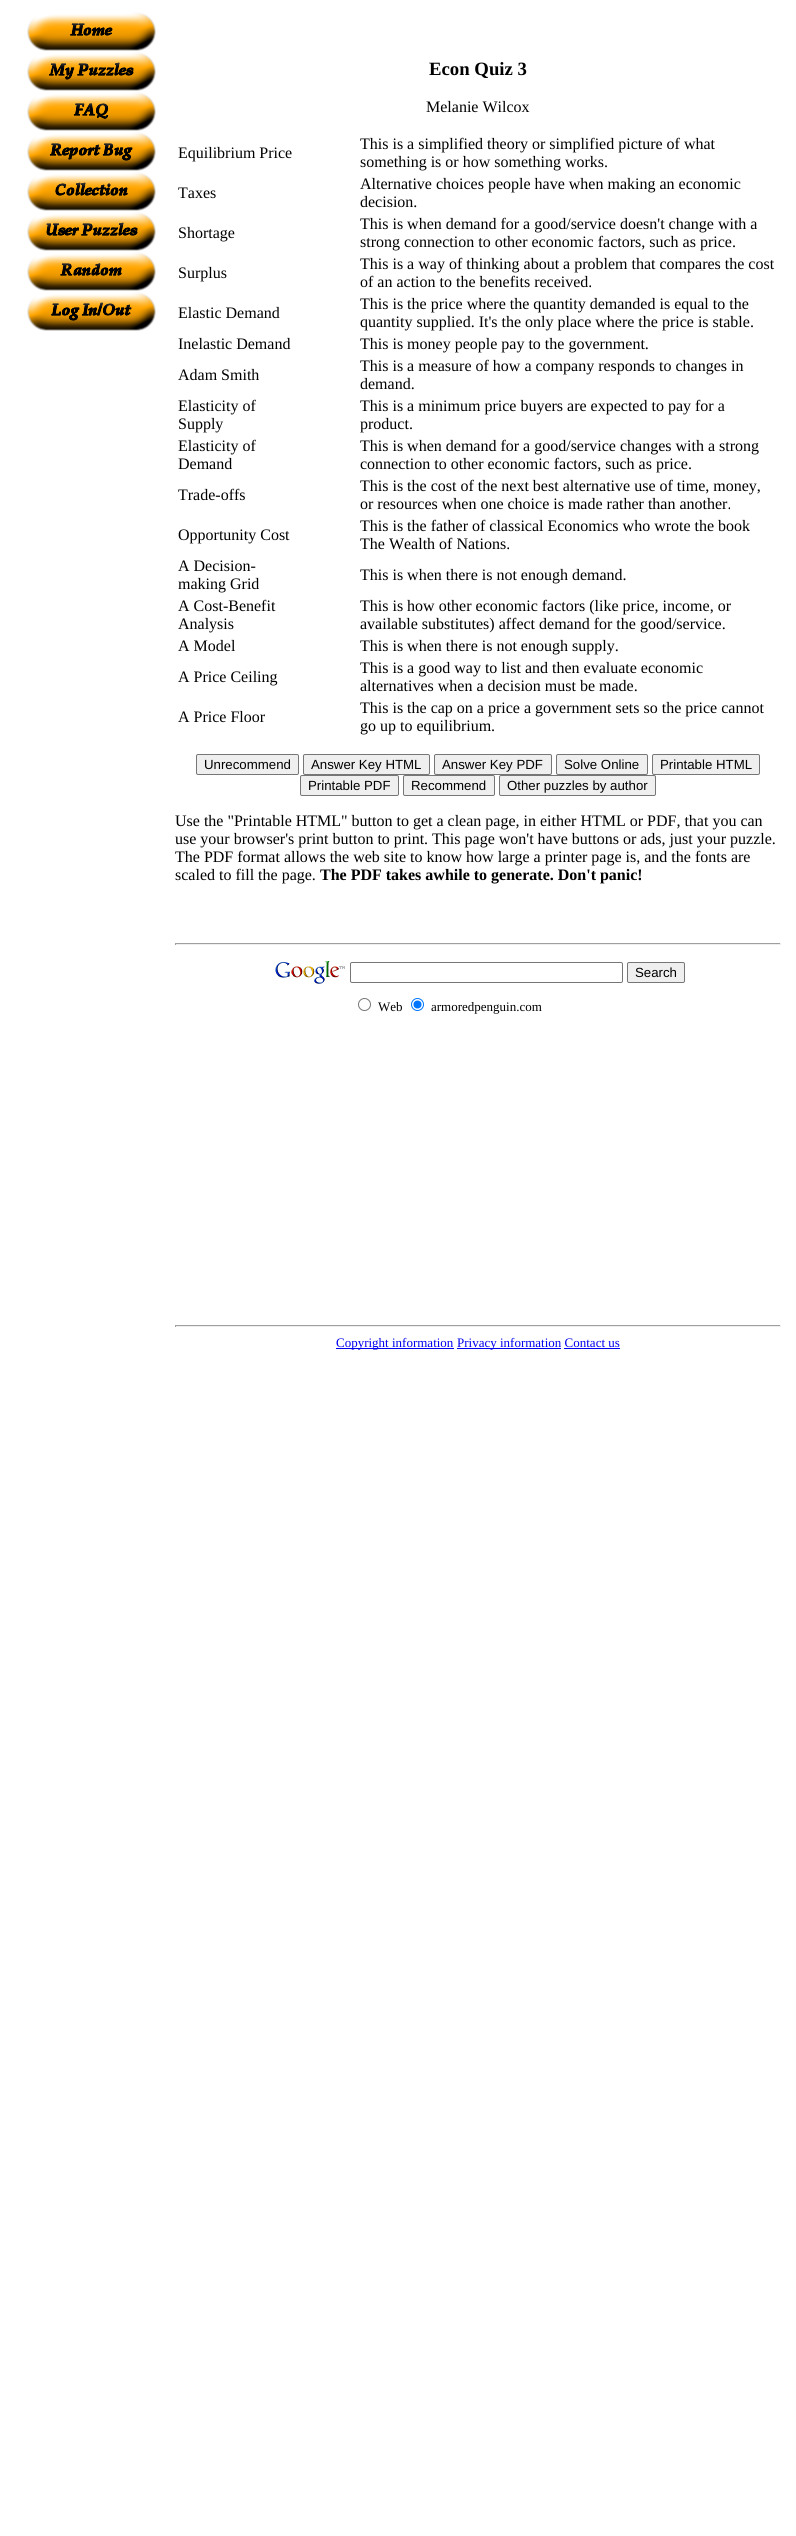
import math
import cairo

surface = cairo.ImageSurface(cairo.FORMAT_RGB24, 796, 2536)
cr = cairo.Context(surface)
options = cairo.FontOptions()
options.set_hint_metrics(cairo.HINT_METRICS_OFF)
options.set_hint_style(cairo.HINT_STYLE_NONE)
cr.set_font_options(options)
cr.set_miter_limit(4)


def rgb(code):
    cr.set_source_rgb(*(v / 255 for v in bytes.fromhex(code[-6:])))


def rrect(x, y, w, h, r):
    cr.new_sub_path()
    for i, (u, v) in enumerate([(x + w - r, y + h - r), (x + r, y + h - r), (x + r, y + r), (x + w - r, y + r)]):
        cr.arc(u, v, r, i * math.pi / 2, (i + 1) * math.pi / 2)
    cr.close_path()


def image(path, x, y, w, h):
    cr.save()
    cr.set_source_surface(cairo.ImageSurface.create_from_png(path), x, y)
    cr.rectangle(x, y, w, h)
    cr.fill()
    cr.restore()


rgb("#ffffff")
cr.paint()
image("img/1.png", 27, 12, 129, 39)
image("img/2.png", 27, 52, 129, 39)
image("img/3.png", 27, 92, 129, 39)
image("img/4.png", 27, 132, 129, 39)
image("img/5.png", 27, 172, 129, 39)
image("img/6.png", 27, 212, 129, 39)
image("img/7.png", 27, 252, 129, 39)
image("img/8.png", 27, 292, 129, 39)
rgb("#efefef")
rrect(196.5, 754.5, 102, 20, 1.5)
cr.fill_preserve()
rgb("#767676")
cr.set_line_width(1)
cr.stroke()
rgb("#efefef")
rrect(303.5, 754.5, 126, 20, 1.5)
cr.fill_preserve()
rgb("#767676")
cr.stroke()
rgb("#efefef")
rrect(434.5, 754.5, 117, 20, 1.5)
cr.fill_preserve()
rgb("#767676")
cr.stroke()
rgb("#efefef")
rrect(556.5, 754.5, 91, 20, 1.5)
cr.fill_preserve()
rgb("#767676")
cr.stroke()
rgb("#efefef")
rrect(652.5, 754.5, 107, 20, 1.5)
cr.fill_preserve()
rgb("#767676")
cr.stroke()
rgb("#efefef")
rrect(300.5, 775.5, 98, 20, 1.5)
cr.fill_preserve()
rgb("#767676")
cr.stroke()
rgb("#efefef")
rrect(403.5, 775.5, 91, 20, 1.5)
cr.fill_preserve()
rgb("#767676")
cr.stroke()
rgb("#efefef")
rrect(499.5, 775.5, 156, 20, 1.5)
cr.fill_preserve()
rgb("#767676")
cr.stroke()
for x, y, w, h, color in [
    (175, 943, 606, 1, "#9f9f9f"),
    (780, 943, 1, 2, "#eeeeee"),
    (175, 944, 606, 1, "#eeeeee"),
    (175, 943, 1, 2, "#9f9f9f"),
]:
    rgb(color)
    cr.rectangle(x, y, w, h)
    cr.fill()
image("img/9.png", 275, 961, 70, 23)
rrect(350.5, 962.5, 272, 20, 1.5)
rgb("#767676")
cr.stroke()
rgb("#efefef")
rrect(627.5, 962.5, 57, 20, 1.5)
cr.fill_preserve()
rgb("#767676")
cr.stroke()
cr.arc(364.5, 1004.5, 6, 0, 2 * math.pi)
cr.stroke()
cr.arc(417.5, 1004.5, 6, 0, 2 * math.pi)
rgb("#0075ff")
cr.stroke()
cr.arc(417.5, 1004.5, 4, 0, 2 * math.pi)
cr.fill()
for x, y, w, h, color in [
    (175, 1325, 606, 1, "#9f9f9f"),
    (780, 1325, 1, 2, "#eeeeee"),
    (175, 1326, 606, 1, "#eeeeee"),
    (175, 1325, 1, 2, "#9f9f9f"),
    (336, 1348, 118, 1, "#0000ee"),
    (457, 1348, 104, 1, "#0000ee"),
    (564, 1348, 56, 1, "#0000ee"),
]:
    rgb(color)
    cr.rectangle(x, y, w, h)
    cr.fill()
cr.select_font_face("Liberation Serif", cairo.FONT_SLANT_NORMAL, cairo.FONT_WEIGHT_BOLD)
cr.set_font_size(18.75)
rgb("#000000")
cr.move_to(429, 75)
cr.show_text("Econ Quiz 3")
cr.select_font_face("Liberation Serif")
cr.set_font_size(16)
for x, y, s in [
    (426, 112, "Melanie Wilcox"),
    (178, 158, "Equilibrium Price"),
    (360, 149, "This is a simplified theory or simplified picture of what"),
    (360, 167, "something is or how something works."),
    (178, 198, "Taxes"),
    (360, 189, "Alternative choices people have when making an economic"),
    (360, 207, "decision."),
    (178, 238, "Shortage"),
    (360, 229, "This is when demand for a good/service doesn't change with a"),
    (360, 247, "strong connection to other economic factors, such as price."),
    (178, 278, "Surplus"),
    (360, 269, "This is a way of thinking about a problem that compares the cost"),
    (360, 287, "of an action to the benefits received."),
    (178, 318, "Elastic Demand"),
    (360, 309, "This is the price where the quantity demanded is equal to the"),
    (360, 327, "quantity supplied. It's the only place where the price is stable."),
    (178, 349, "Inelastic Demand"),
    (360, 349, "This is money people pay to the government."),
    (178, 380, "Adam Smith"),
    (360, 371, "This is a measure of how a company responds to changes in"),
    (360, 389, "demand."),
    (178, 411, "Elasticity of"),
    (178, 429, "Supply"),
    (360, 411, "This is a minimum price buyers are expected to pay for a"),
    (360, 429, "product."),
    (178, 451, "Elasticity of"),
    (178, 469, "Demand"),
    (360, 451, "This is when demand for a good/service changes with a strong"),
    (360, 469, "connection to other economic factors, such as price."),
    (178, 500, "Trade-offs"),
    (360, 491, "This is the cost of the next best alternative use of time, money,"),
    (360, 509, "or resources when one choice is made rather than another."),
    (178, 540, "Opportunity Cost"),
    (360, 531, "This is the father of classical Economics who wrote the book"),
    (360, 549, "The Wealth of Nations."),
    (178, 571, "A Decision-"),
    (178, 589, "making Grid"),
    (360, 580, "This is when there is not enough demand."),
    (178, 611, "A Cost-Benefit"),
    (178, 629, "Analysis"),
    (360, 611, "This is how other economic factors (like price, income, or"),
    (360, 629, "available substitutes) affect demand for the good/service."),
    (178, 651, "A Model"),
    (360, 651, "This is when there is not enough supply."),
    (178, 682, "A Price Ceiling"),
    (360, 673, "This is a good way to list and then evaluate economic"),
    (360, 691, "alternatives when a decision must be made."),
    (178, 722, "A Price Floor"),
    (360, 713, "This is the cap on a price a government sets so the price cannot"),
    (360, 731, "go up to equilibrium."),
]:
    cr.move_to(x, y)
    cr.show_text(s)
cr.select_font_face("Liberation Sans")
cr.set_font_size(13.25)
for x, y, s in [
    (204, 769, "Unrecommend"),
    (311, 769, "Answer Key HTML"),
    (442, 769, "Answer Key PDF"),
    (564, 769, "Solve Online"),
    (660, 769, "Printable HTML"),
    (308, 790, "Printable PDF"),
    (411, 790, "Recommend"),
    (507, 790, "Other puzzles by author"),
]:
    cr.move_to(x, y)
    cr.show_text(s)
cr.select_font_face("Liberation Serif")
cr.set_font_size(16)
for x, y, s in [
    (175, 826, "Use the \"Printable HTML\" button to get a clean page, in either HTML or PDF, that you can"),
    (175, 844, "use your browser's print button to print. This page won't have buttons or ads, just your puzzle."),
    (175, 862, "The PDF format allows the web site to know how large a printer page is, and the fonts are"),
    (175, 880, "scaled to fill the page."),
]:
    cr.move_to(x, y)
    cr.show_text(s)
cr.select_font_face("Liberation Serif", cairo.FONT_SLANT_NORMAL, cairo.FONT_WEIGHT_BOLD)
cr.move_to(320, 880)
cr.show_text("The PDF takes awhile to generate. Don't panic!")
cr.select_font_face("Liberation Sans")
cr.set_font_size(13.25)
cr.move_to(635, 977)
cr.show_text("Search")
cr.select_font_face("Liberation Serif")
cr.set_font_size(13)
cr.move_to(378, 1011)
cr.show_text("Web")
cr.move_to(431, 1011)
cr.show_text("armoredpenguin.com")
rgb("#0000ee")
cr.move_to(336, 1347)
cr.show_text("Copyright information")
cr.move_to(457, 1347)
cr.show_text("Privacy information Contact us")
surface.write_to_png("page.png")
